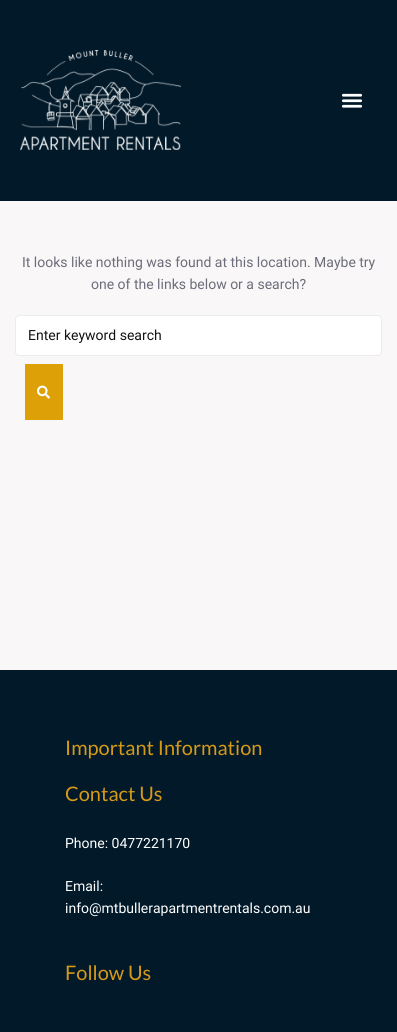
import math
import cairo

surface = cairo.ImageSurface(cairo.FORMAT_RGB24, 397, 1032)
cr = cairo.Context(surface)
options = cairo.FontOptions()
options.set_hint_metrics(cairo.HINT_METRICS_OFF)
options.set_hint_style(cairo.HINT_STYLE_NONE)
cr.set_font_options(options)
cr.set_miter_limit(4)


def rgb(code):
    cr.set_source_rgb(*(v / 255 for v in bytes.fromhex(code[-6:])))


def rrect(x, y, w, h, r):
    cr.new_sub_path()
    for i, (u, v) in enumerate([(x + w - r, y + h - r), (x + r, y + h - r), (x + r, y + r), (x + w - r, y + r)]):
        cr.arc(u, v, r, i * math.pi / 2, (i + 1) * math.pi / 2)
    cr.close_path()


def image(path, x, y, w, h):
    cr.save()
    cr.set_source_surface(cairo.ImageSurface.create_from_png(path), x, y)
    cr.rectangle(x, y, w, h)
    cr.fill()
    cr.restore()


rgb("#f9f7f7")
cr.paint()
rgb("#011929")
cr.rectangle(0, 0, 397, 201)
cr.fill()
image("img/1.png", 20, 50, 161, 100)
image("img/2.png", 341, 93, 22, 15)
rgb("#ffffff")
rrect(15.5, 315.5, 366, 40, 3.5)
cr.fill_preserve()
rgb("#ebeced")
cr.set_line_width(1)
cr.stroke()
rgb("#dda107")
cr.rectangle(25, 364, 38, 56)
cr.fill()
image("img/3.png", 37, 385, 13, 14)
rgb("#011929")
cr.rectangle(0, 670, 397, 362)
cr.fill()
cr.select_font_face("Roboto")
cr.set_font_size(14)
rgb("#6c6d7a")
cr.move_to(22, 267)
cr.show_text("It looks like nothing was found at this location. Maybe try")
cr.move_to(91, 289)
cr.show_text("one of the links below or a search?")
rgb("#131313")
cr.move_to(28, 340)
cr.show_text("Enter keyword search")
cr.select_font_face("Lato")
cr.set_font_size(20)
rgb("#d69a19")
cr.move_to(65, 755)
cr.show_text("Important Information")
cr.move_to(65, 801)
cr.show_text("Contact Us")
cr.select_font_face("Roboto")
cr.set_font_size(14)
rgb("#ffffff")
for x, y, s in [
    (65, 848, "Phone: 0477221170"),
    (65, 891, "Email:"),
    (65, 913, "info@mtbullerapartmentrentals.com.au"),
]:
    cr.move_to(x, y)
    cr.show_text(s)
cr.select_font_face("Lato")
cr.set_font_size(20)
rgb("#d69a19")
cr.move_to(65, 980)
cr.show_text("Follow Us")
surface.write_to_png("page.png")
